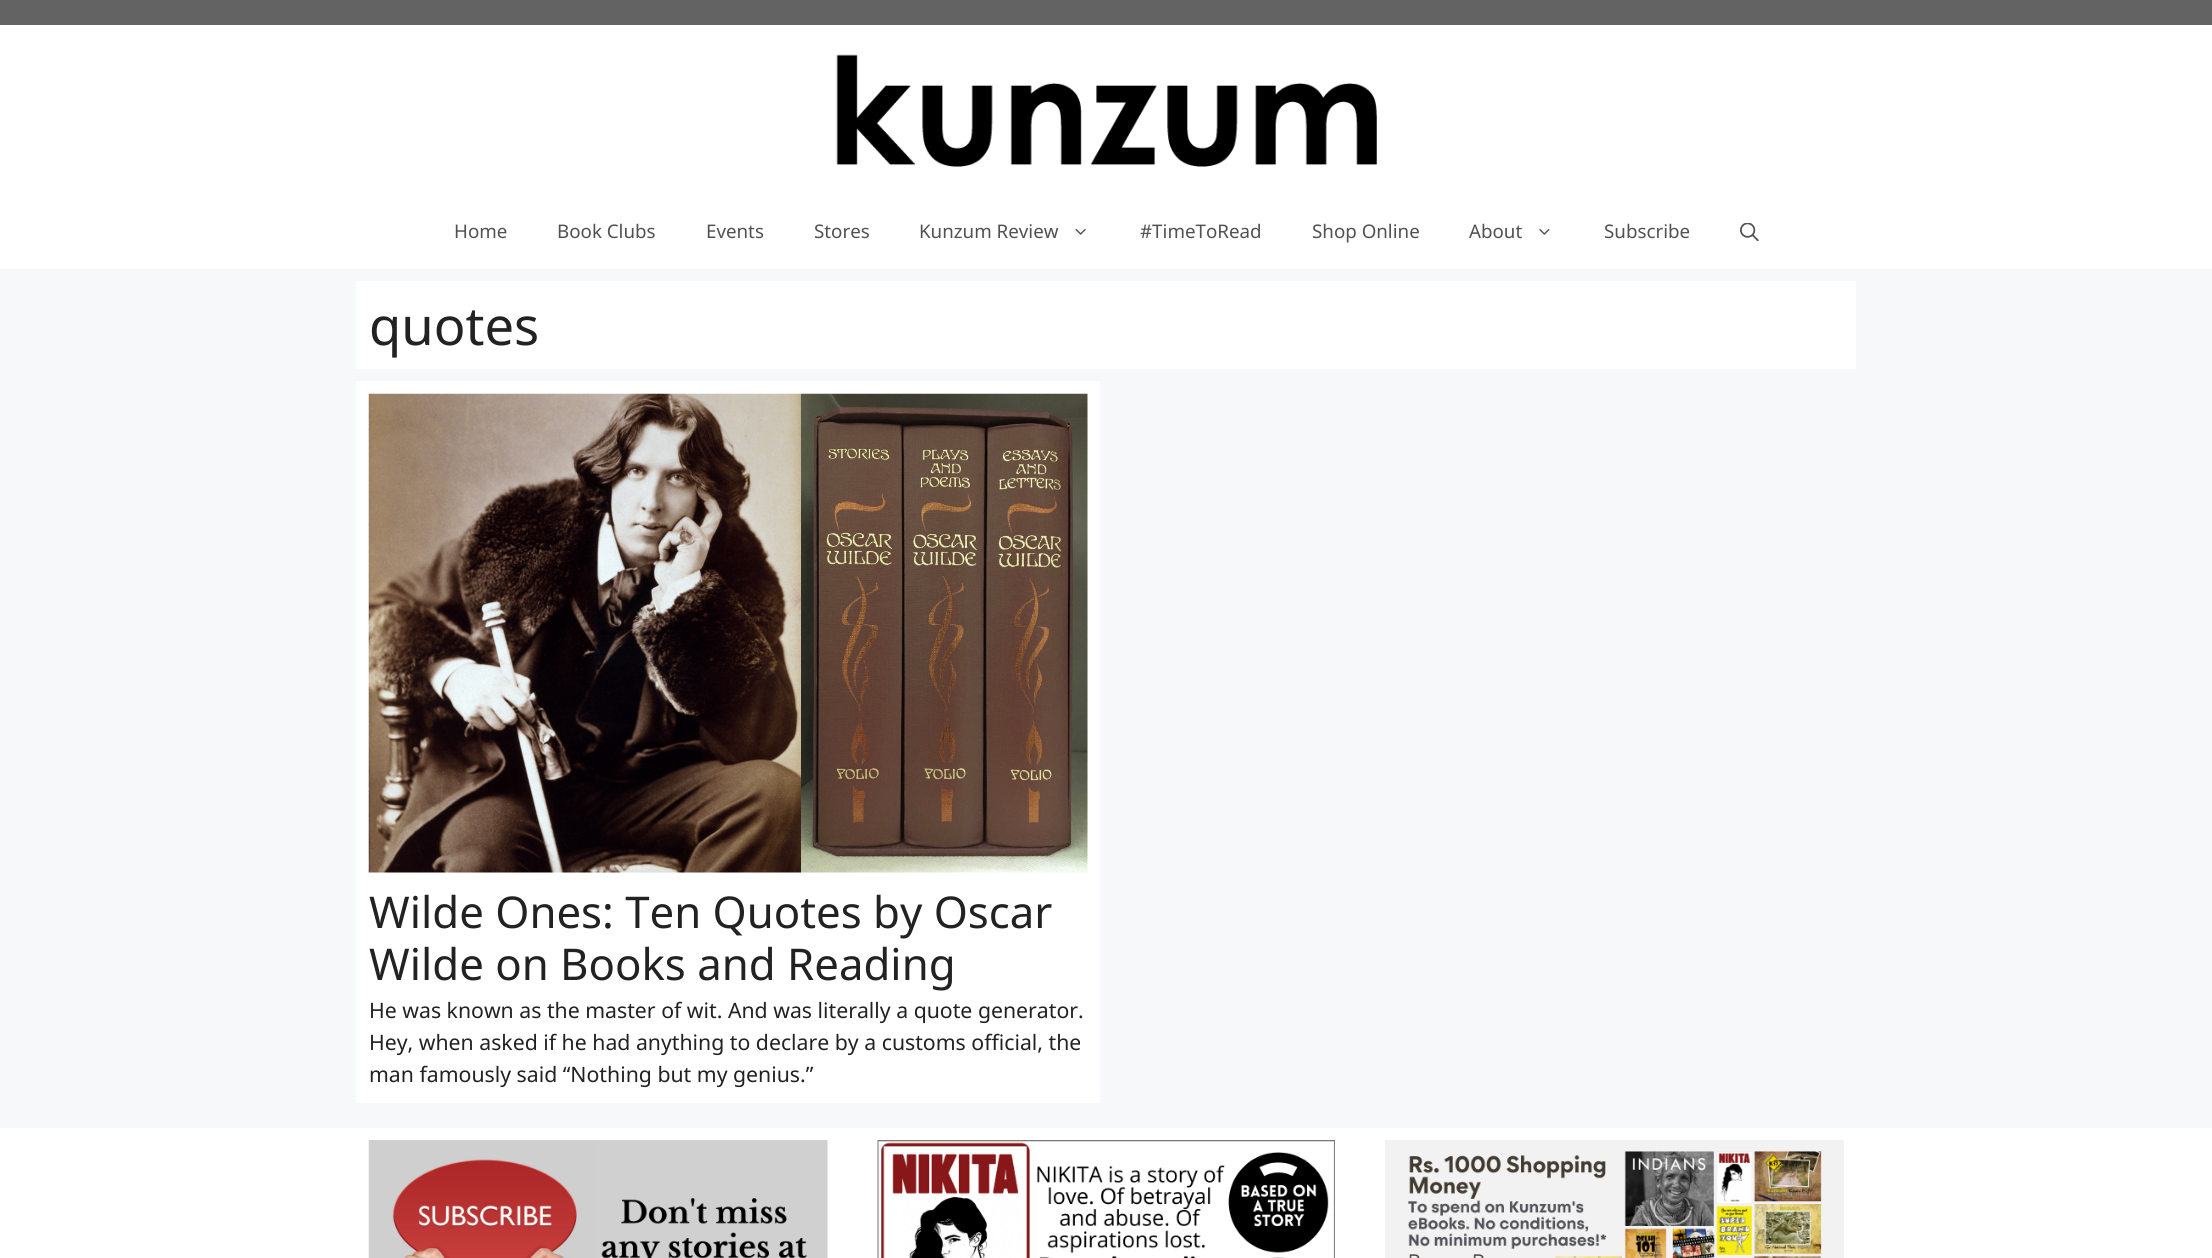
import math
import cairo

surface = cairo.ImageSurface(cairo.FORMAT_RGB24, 2212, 1258)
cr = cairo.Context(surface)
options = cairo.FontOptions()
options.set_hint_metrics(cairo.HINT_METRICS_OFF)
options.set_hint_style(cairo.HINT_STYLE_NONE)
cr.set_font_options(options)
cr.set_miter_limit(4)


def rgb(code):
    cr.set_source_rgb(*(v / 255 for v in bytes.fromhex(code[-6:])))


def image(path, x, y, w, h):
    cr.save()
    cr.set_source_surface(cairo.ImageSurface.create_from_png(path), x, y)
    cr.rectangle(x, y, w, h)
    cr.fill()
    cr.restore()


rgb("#f7f8f9")
cr.paint()
rgb("#636363")
cr.rectangle(0, 0, 2212, 25)
cr.fill()
rgb("#ffffff")
cr.rectangle(0, 25, 2212, 244)
cr.fill()
image("img/1.png", 836, 54, 541, 113)
image("img/2.png", 1075, 228, 11, 7)
image("img/3.png", 1539, 228, 11, 7)
image("img/4.png", 1740, 223, 19, 18)
cr.rectangle(356, 281, 1500, 88)
cr.fill()
cr.rectangle(356, 381, 744, 722)
cr.fill()
image("img/5.png", 368, 393, 720, 480)
cr.rectangle(0, 1128, 2212, 130)
cr.fill()
image("img/6.png", 368, 1140, 460, 118)
image("img/7.png", 877, 1140, 458, 118)
image("img/8.png", 1385, 1140, 459, 118)
cr.select_font_face("Noto Sans")
cr.set_font_size(18.75)
rgb("#515151")
for x, y, s in [
    (454, 238, "Home"),
    (557, 238, "Book Clubs"),
    (706, 238, "Events"),
    (814, 238, "Stores"),
    (919, 238, "Kunzum Review"),
    (1140, 238, "#TimeToRead"),
    (1312, 238, "Shop Online"),
    (1469, 238, "About"),
    (1604, 238, "Subscribe"),
]:
    cr.move_to(x, y)
    cr.show_text(s)
cr.set_font_size(52.5)
rgb("#222222")
cr.move_to(369, 345)
cr.show_text("quotes")
cr.set_font_size(43.75)
cr.move_to(369, 928)
cr.show_text("Wilde Ones: Ten Quotes by Oscar")
cr.move_to(369, 980)
cr.show_text("Wilde on Books and Reading")
cr.set_font_size(21.25)
for x, y, s in [
    (369, 1018, "He was known as the master of wit. And was literally a quote generator."),
    (369, 1050, "Hey, when asked if he had anything to declare by a customs official, the"),
    (369, 1082, "man famously said “Nothing but my genius.”"),
]:
    cr.move_to(x, y)
    cr.show_text(s)
surface.write_to_png("page.png")
